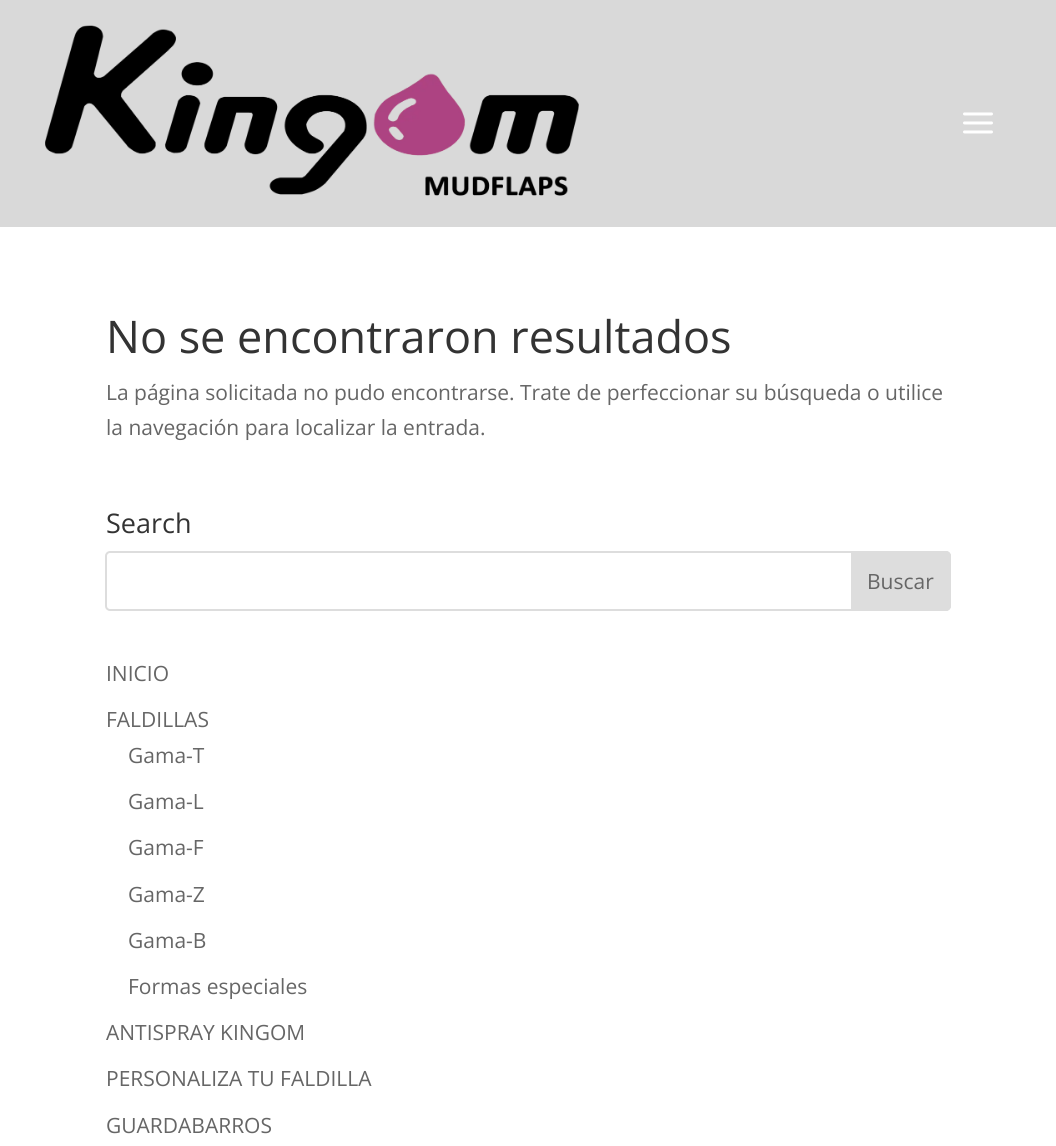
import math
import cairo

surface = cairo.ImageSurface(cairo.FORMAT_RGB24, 1056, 1146)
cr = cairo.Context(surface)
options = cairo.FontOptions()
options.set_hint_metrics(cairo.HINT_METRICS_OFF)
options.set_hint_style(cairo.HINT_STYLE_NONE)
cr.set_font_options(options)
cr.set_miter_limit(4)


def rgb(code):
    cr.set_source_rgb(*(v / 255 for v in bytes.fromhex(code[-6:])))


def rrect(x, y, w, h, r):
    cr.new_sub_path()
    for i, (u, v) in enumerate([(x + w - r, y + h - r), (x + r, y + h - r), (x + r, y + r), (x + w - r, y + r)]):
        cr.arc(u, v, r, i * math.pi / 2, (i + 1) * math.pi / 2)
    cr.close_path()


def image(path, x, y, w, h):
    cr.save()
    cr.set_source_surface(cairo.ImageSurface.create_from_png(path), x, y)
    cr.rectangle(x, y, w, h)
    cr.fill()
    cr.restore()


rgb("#ffffff")
cr.paint()
rgb("#d9d9d9")
cr.rectangle(0, 0, 1056, 227)
cr.fill()
image("img/1.png", 45, 25, 534, 171)
image("img/2.png", 963, 112, 30, 22)
rrect(106, 552, 844, 58, 4)
rgb("#dddddd")
cr.stroke()
cr.new_path()
cr.move_to(852, 552)
cr.line_to(946, 552)
cr.curve_to(948, 552, 950, 554, 950, 556)
cr.line_to(950, 606)
cr.curve_to(950, 608, 948, 610, 946, 610)
cr.line_to(852, 610)
cr.close_path()
cr.fill_preserve()
cr.stroke()
cr.select_font_face("Open Sans")
cr.set_font_size(45)
rgb("#333333")
cr.move_to(106, 353)
cr.show_text("No se encontraron resultados")
cr.set_font_size(21)
rgb("#666666")
cr.move_to(106, 400)
cr.show_text("La página solicitada no pudo encontrarse. Trate de perfeccionar su búsqueda o utilice")
cr.move_to(106, 435)
cr.show_text("la navegación para localizar la entrada.")
cr.set_font_size(27)
rgb("#333333")
cr.move_to(106, 533)
cr.show_text("Search")
cr.set_font_size(21)
rgb("#666666")
for x, y, s in [
    (867, 589, "Buscar"),
    (106, 681, "INICIO"),
    (106, 727, "FALDILLAS"),
    (128, 763, "Gama-T"),
    (128, 809, "Gama-L"),
    (128, 855, "Gama-F"),
    (128, 902, "Gama-Z"),
    (128, 948, "Gama-B"),
    (128, 994, "Formas especiales"),
    (106, 1040, "ANTISPRAY KINGOM"),
    (106, 1086, "PERSONALIZA TU FALDILLA"),
    (106, 1133, "GUARDABARROS"),
]:
    cr.move_to(x, y)
    cr.show_text(s)
surface.write_to_png("page.png")
